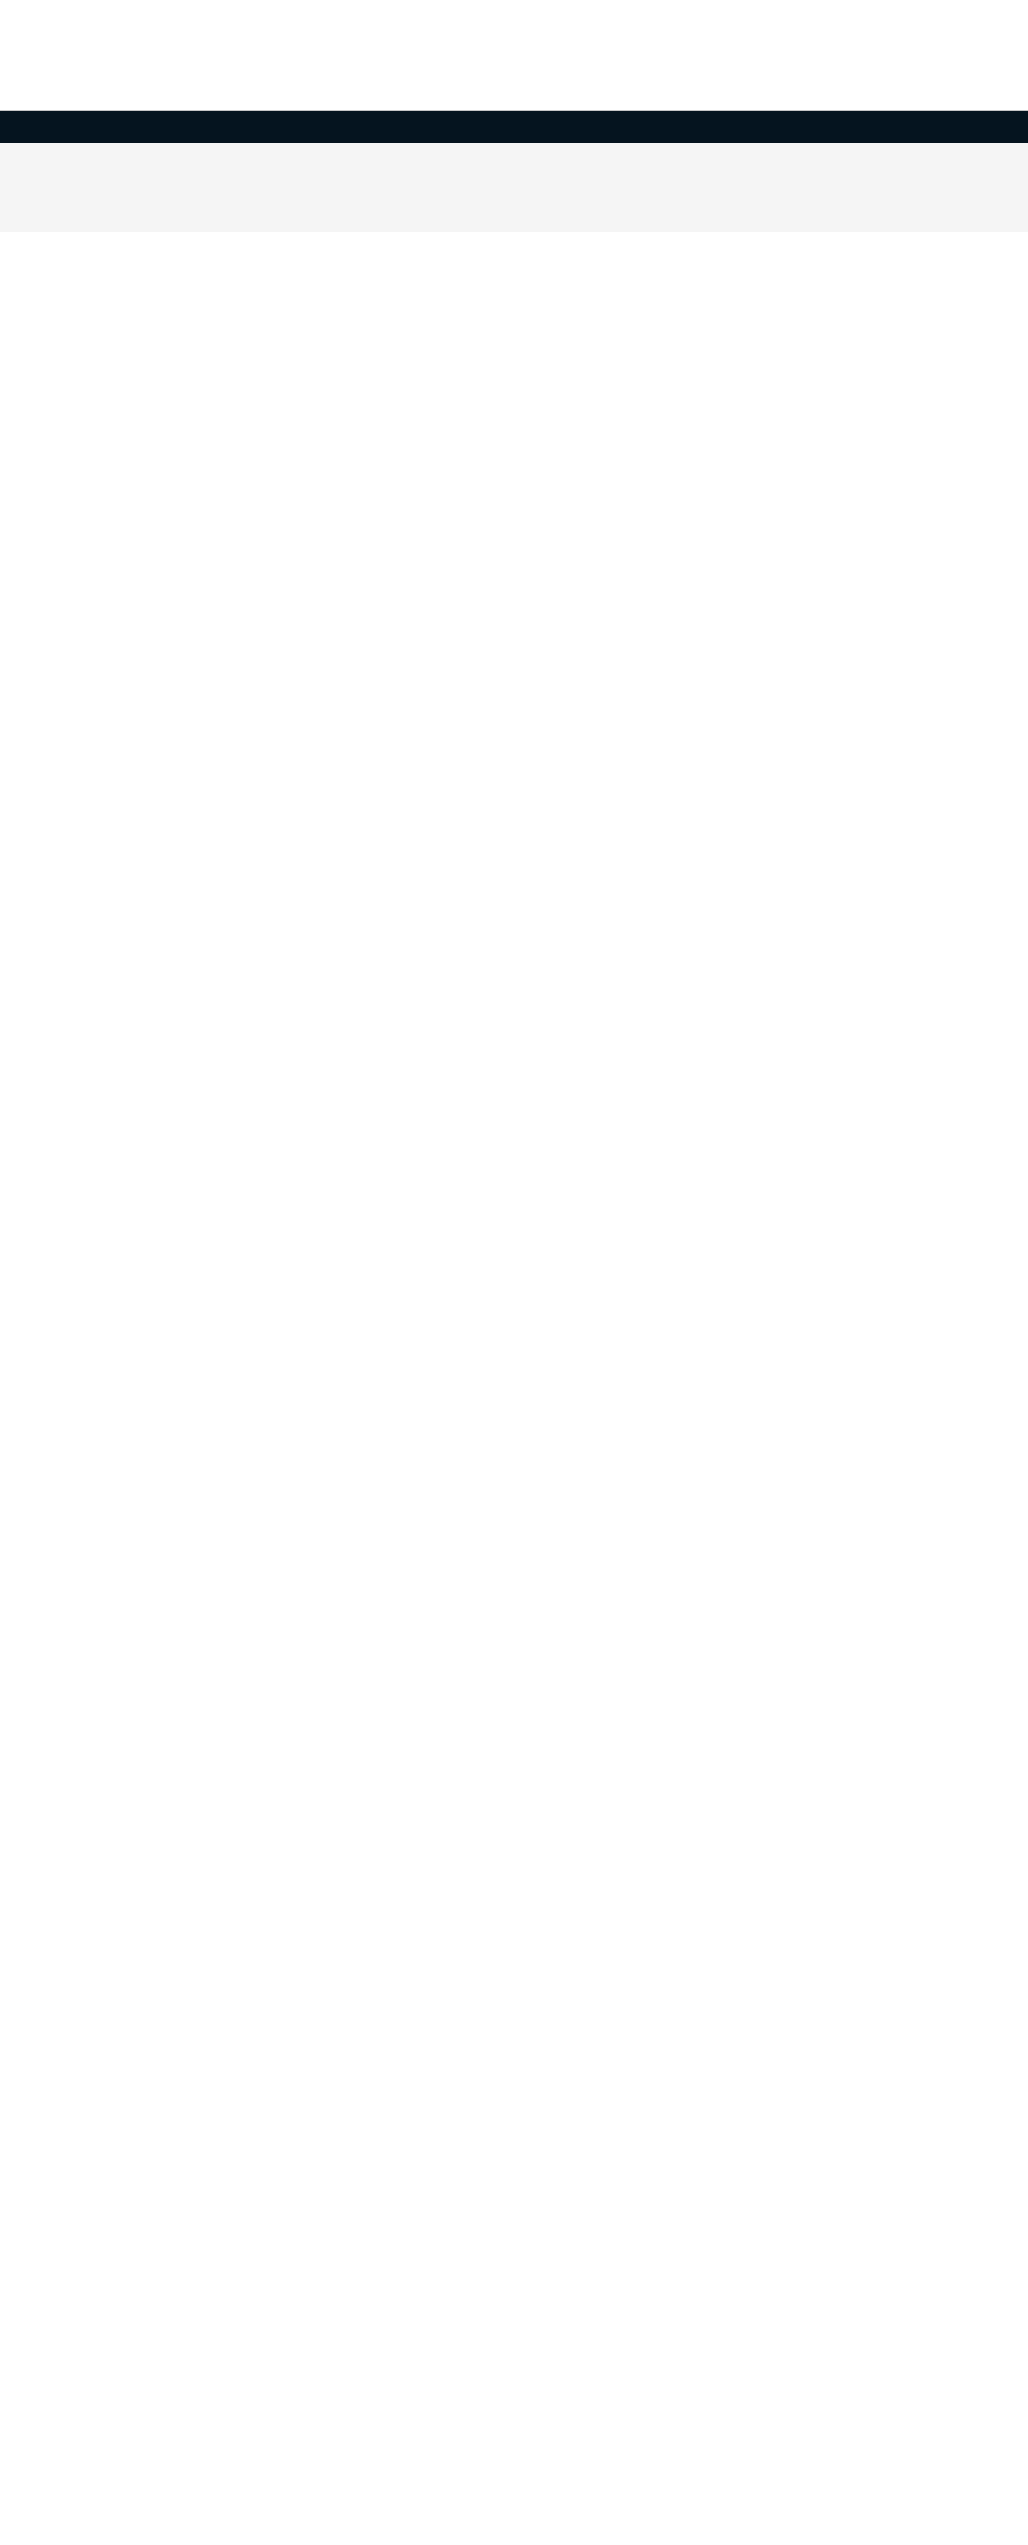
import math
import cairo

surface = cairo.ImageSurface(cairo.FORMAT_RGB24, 1028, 2545)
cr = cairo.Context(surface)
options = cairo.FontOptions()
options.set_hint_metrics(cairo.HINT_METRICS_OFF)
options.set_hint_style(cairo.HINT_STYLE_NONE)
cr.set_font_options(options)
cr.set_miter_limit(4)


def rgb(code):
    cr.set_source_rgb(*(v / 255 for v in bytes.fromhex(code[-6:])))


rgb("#ffffff")
cr.paint()
for x, y, w, h, color in [
    (0, 143, 1028, 89, "#f5f5f5"),
    (0, 111, 1028, 32, "#05141f"),
    (0, 110, 1028, 1, "#c6c6c6"),
]:
    rgb(color)
    cr.rectangle(x, y, w, h)
    cr.fill()
surface.write_to_png("page.png")
